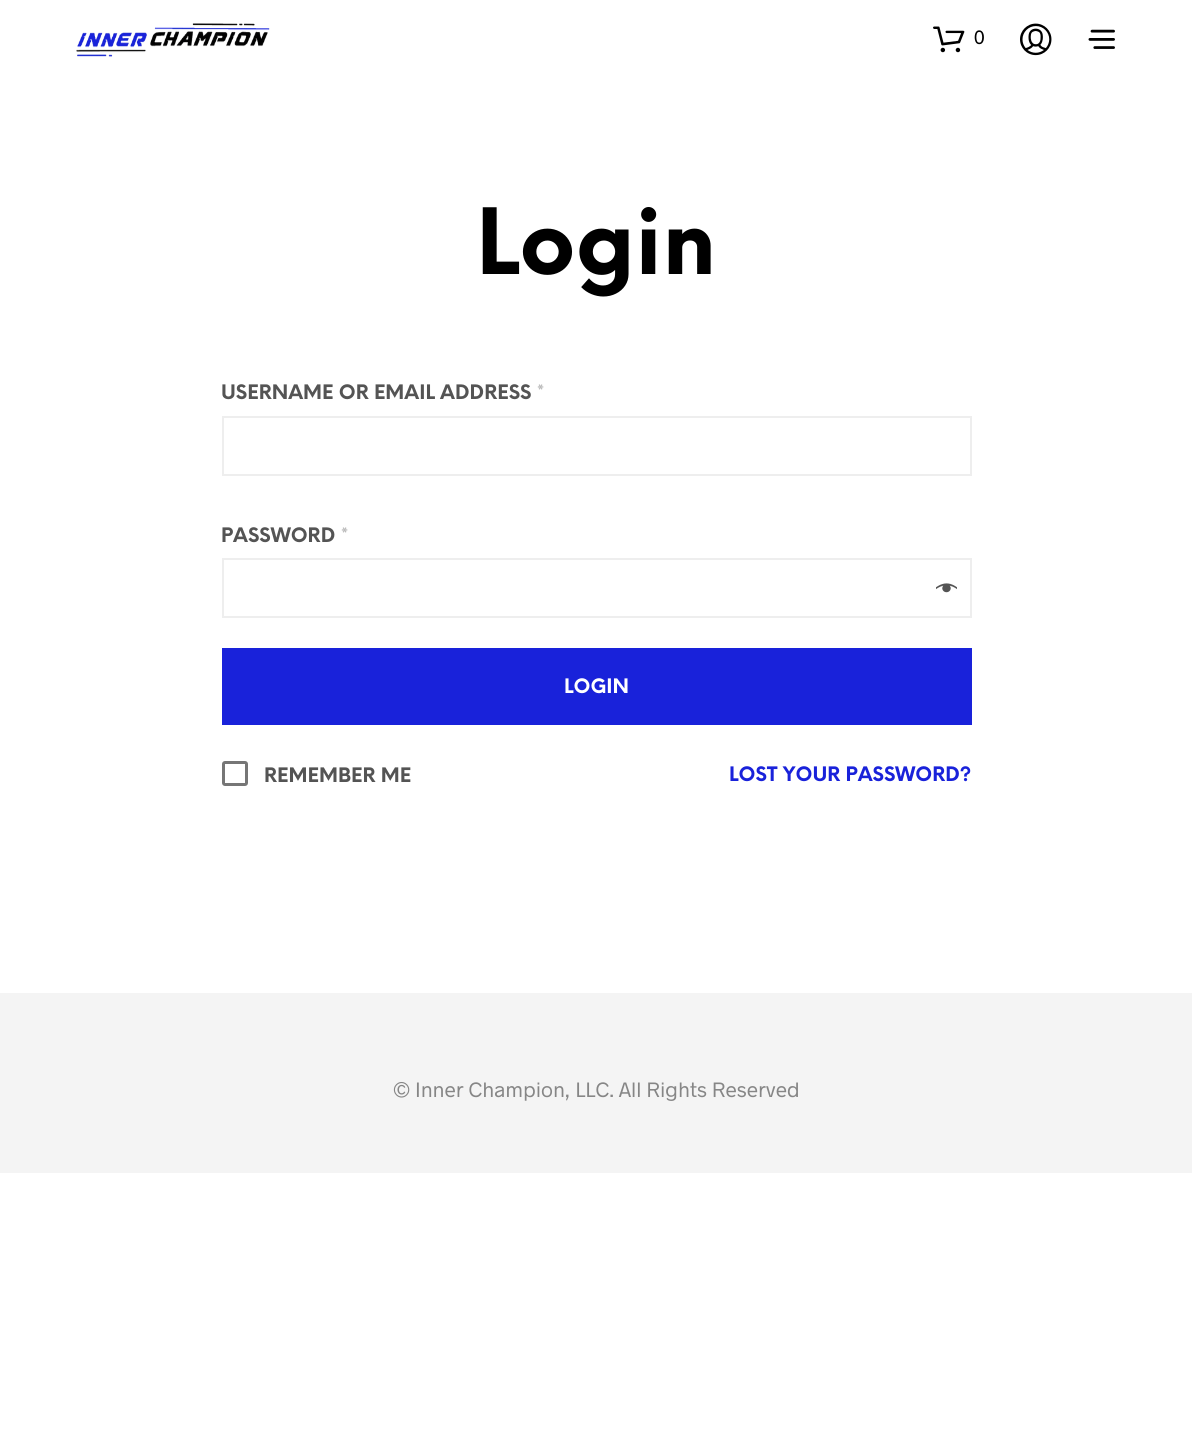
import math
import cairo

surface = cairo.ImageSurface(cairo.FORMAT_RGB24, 1192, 1444)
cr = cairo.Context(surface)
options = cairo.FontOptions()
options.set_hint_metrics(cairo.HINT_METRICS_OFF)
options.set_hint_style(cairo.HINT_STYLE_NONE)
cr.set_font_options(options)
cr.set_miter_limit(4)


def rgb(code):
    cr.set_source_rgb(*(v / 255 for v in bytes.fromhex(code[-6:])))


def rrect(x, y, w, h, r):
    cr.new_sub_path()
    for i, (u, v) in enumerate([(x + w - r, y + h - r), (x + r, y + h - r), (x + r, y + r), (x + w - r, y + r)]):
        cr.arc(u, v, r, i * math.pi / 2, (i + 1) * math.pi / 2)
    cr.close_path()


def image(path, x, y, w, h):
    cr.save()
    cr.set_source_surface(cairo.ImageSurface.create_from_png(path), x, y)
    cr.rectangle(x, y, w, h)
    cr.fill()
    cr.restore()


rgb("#ffffff")
cr.paint()
image("img/1.png", 76, 23, 194, 34)
image("img/2.png", 933, 26, 32, 27)
image("img/3.png", 1020, 23, 32, 33)
image("img/4.png", 1088, 29, 27, 20)
cr.rectangle(223, 417, 748, 58)
rgb("#eeeeee")
cr.stroke()
cr.rectangle(223, 559, 748, 58)
cr.stroke()
image("img/5.png", 936, 583, 21, 10)
rgb("#1922da")
cr.rectangle(222, 648, 750, 77)
cr.fill()
rrect(223.5, 762.5, 23, 22, 1.5)
rgb("#767676")
cr.set_line_width(3)
cr.stroke()
rgb("#f4f4f4")
cr.rectangle(0, 993, 1192, 180)
cr.fill()
cr.select_font_face("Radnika")
cr.set_font_size(19.5)
rgb("#000000")
cr.move_to(974, 44)
cr.show_text("0")
cr.select_font_face("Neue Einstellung", cairo.FONT_SLANT_NORMAL, cairo.FONT_WEIGHT_BOLD)
cr.set_font_size(89)
cr.move_to(476, 274)
cr.show_text("Login")
cr.set_font_size(19.5)
rgb("#545454")
cr.move_to(221, 399)
cr.show_text("USERNAME OR EMAIL ADDRESS")
rgb("#bbbbbb")
cr.move_to(537, 399)
cr.show_text("*")
rgb("#545454")
cr.move_to(221, 542)
cr.show_text("PASSWORD")
rgb("#bbbbbb")
cr.move_to(341, 542)
cr.show_text("*")
rgb("#ffffff")
cr.move_to(564, 693)
cr.show_text("LOGIN")
rgb("#545454")
cr.move_to(264, 782)
cr.show_text("REMEMBER ME")
rgb("#1922da")
cr.move_to(729, 781)
cr.show_text("LOST YOUR PASSWORD?")
cr.select_font_face("Radnika")
cr.set_font_size(21)
rgb("#868686")
cr.move_to(393, 1097)
cr.show_text("© Inner Champion, LLC. All Rights Reserved")
surface.write_to_png("page.png")
